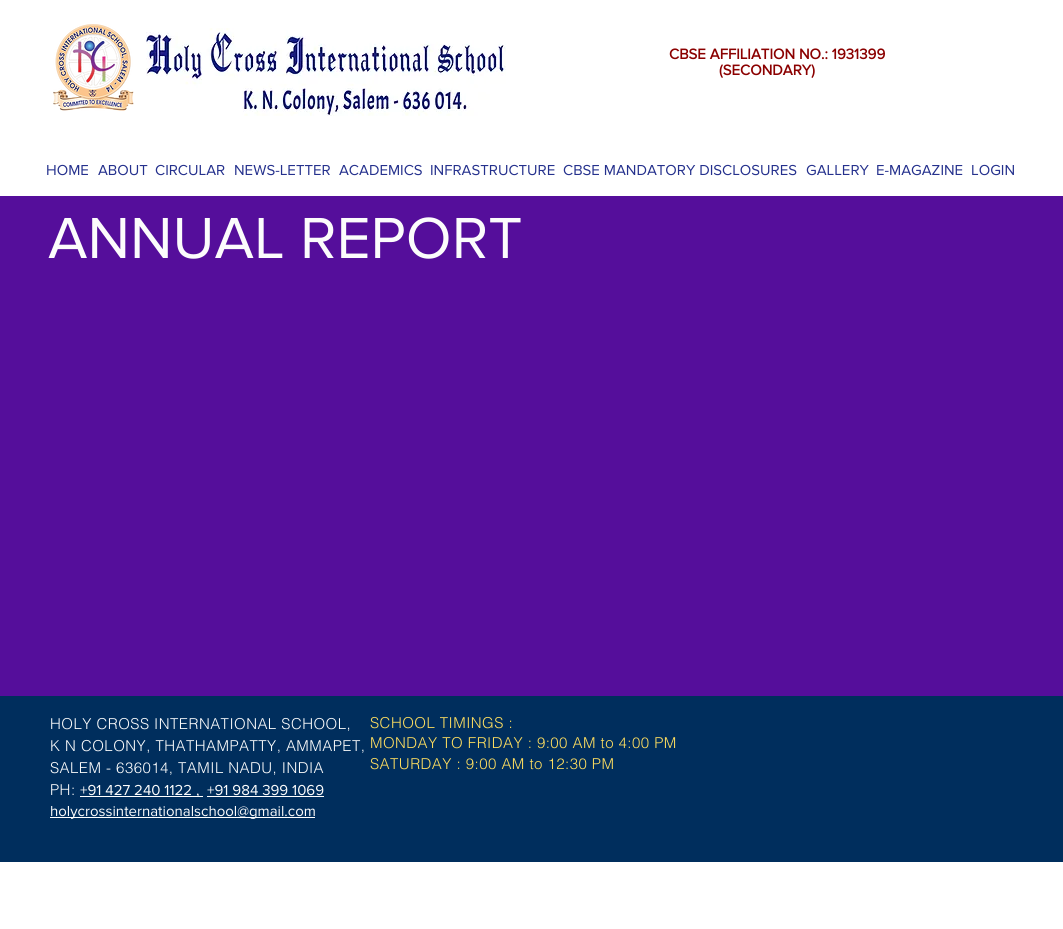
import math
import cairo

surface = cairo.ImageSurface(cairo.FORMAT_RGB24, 1063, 929)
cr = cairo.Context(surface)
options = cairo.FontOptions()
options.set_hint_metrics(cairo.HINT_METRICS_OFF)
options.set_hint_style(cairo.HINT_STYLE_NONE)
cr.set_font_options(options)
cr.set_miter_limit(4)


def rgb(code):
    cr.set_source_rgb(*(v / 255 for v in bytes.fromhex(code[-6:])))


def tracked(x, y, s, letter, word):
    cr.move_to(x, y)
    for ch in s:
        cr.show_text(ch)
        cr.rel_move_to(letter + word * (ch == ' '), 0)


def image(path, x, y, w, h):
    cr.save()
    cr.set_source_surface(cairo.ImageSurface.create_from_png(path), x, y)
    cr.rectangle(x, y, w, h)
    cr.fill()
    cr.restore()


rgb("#ffffff")
cr.paint()
image("img/1.png", 53, 24, 81, 87)
image("img/2.png", 146, 28, 360, 88)
for x, y, w, h, color in [
    (0, 196, 1063, 500, "#550e9b"),
    (0, 696, 1063, 166, "#002e5d"),
    (80, 796, 123, 1, "#ffffff"),
    (207, 796, 117, 1, "#ffffff"),
    (50, 817, 265, 1, "#ffffff"),
]:
    rgb(color)
    cr.rectangle(x, y, w, h)
    cr.fill()
cr.select_font_face("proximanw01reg", cairo.FONT_SLANT_NORMAL, cairo.FONT_WEIGHT_BOLD)
cr.set_font_size(15)
rgb("#8b0000")
cr.move_to(669, 59)
cr.show_text("CBSE AFFILIATION NO.: 1931399")
cr.move_to(719, 75)
cr.show_text("(SECONDARY)")
cr.select_font_face("proximanw01reg")
rgb("#25318d")
for x, y, s in [
    (46, 175, "HOME"),
    (98, 175, "ABOUT"),
    (155, 175, "CIRCULAR"),
    (234, 175, "NEWS-LETTER"),
    (339, 175, "ACADEMICS"),
    (430, 175, "INFRASTRUCTURE"),
    (563, 175, "CBSE MANDATORY DISCLOSURES"),
    (806, 175, "GALLERY"),
    (876, 175, "E-MAGAZINE"),
    (971, 175, "LOGIN"),
]:
    cr.move_to(x, y)
    cr.show_text(s)
cr.set_font_size(60)
rgb("#fcfcfc")
cr.move_to(48, 258)
cr.show_text("ANNUAL REPORT")
cr.select_font_face("helvetica Light")
cr.set_font_size(15)
for x, y, s in [
    (50, 729, "HOLY CROSS INTERNATIONAL SCHOOL,"),
    (50, 751, "K N COLONY, THATHAMPATTY, AMMAPET,"),
    (50, 773, "SALEM - 636014, TAMIL NADU, INDIA"),
    (50, 795, "PH:"),
]:
    tracked(x, y, s, 0.45, 0)
cr.select_font_face("proximanw01reg")
for x, y, s in [
    (80, 795, "+91 427 240 1122 ,"),
    (207, 795, "+91 984 399 1069"),
    (50, 816, "holycrossinternationalschool@gmail.com"),
]:
    cr.move_to(x, y)
    cr.show_text(s)
cr.select_font_face("helvetica Light")
rgb("#ffde5f")
for x, y, s in [
    (370, 728, "SCHOOL TIMINGS :"),
    (370, 748, "MONDAY TO FRIDAY : 9:00 AM to 4:00 PM"),
    (370, 769, "SATURDAY : 9:00 AM to 12:30 PM"),
]:
    tracked(x, y, s, 0.45, 0)
surface.write_to_png("page.png")
